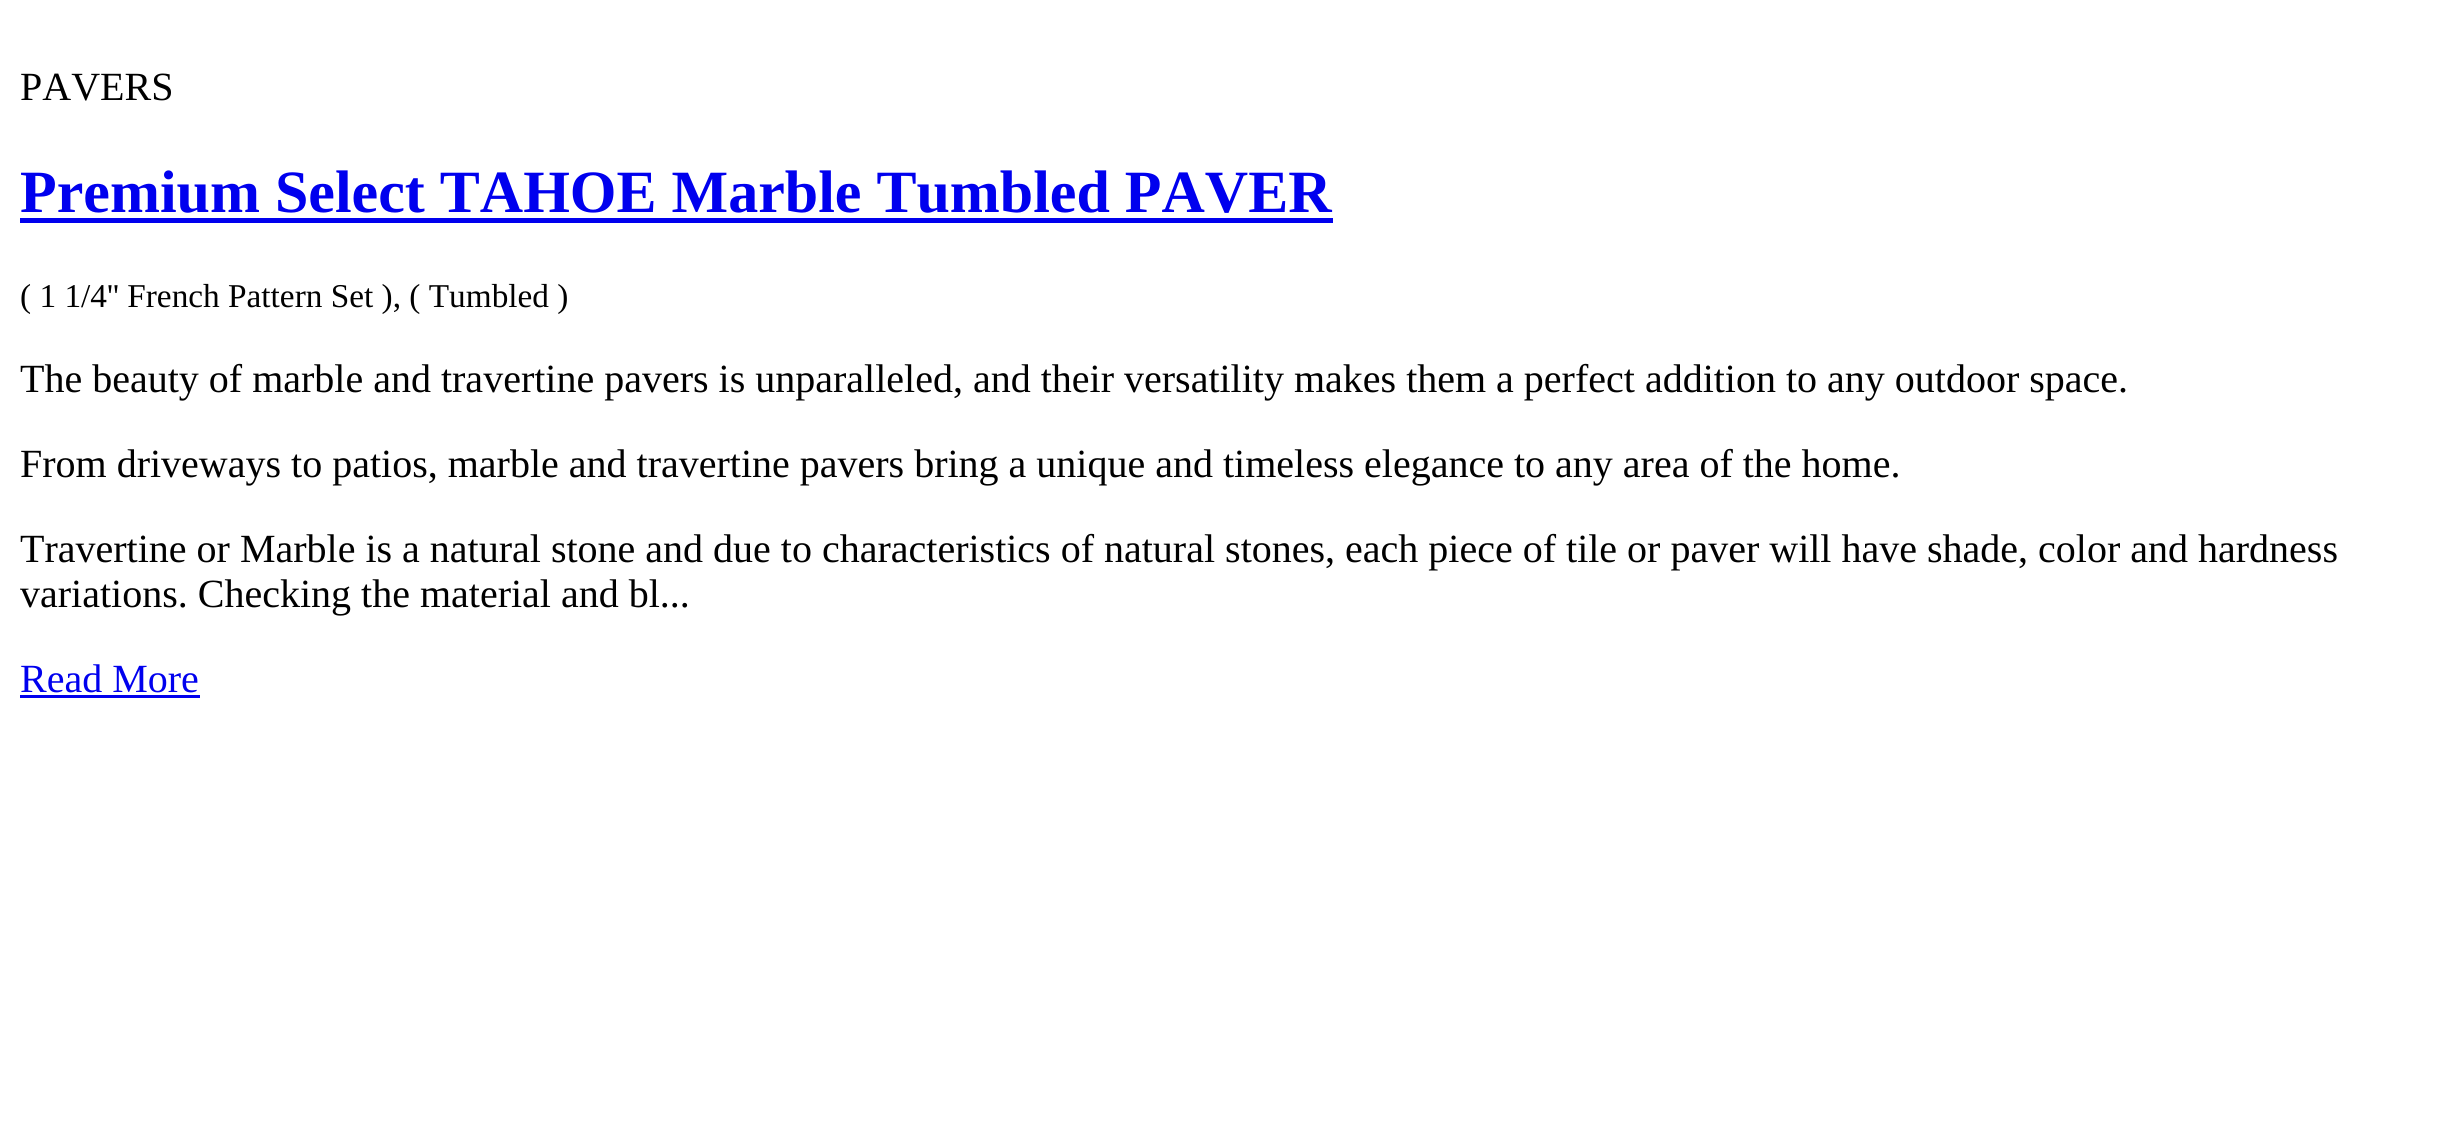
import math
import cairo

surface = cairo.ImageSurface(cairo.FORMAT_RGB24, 2460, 1141)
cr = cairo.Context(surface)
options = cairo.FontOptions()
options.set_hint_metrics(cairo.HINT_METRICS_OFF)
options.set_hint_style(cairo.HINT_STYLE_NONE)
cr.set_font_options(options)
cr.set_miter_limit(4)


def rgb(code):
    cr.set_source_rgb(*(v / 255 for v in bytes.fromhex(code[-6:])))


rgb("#ffffff")
cr.paint()
rgb("#0000ee")
cr.rectangle(20, 218, 1313, 5)
cr.fill()
cr.rectangle(20, 695, 180, 3)
cr.fill()
cr.select_font_face("Liberation Serif")
cr.set_font_size(40)
rgb("#000000")
cr.move_to(20, 100)
cr.show_text("PAVERS")
cr.select_font_face("Liberation Serif", cairo.FONT_SLANT_NORMAL, cairo.FONT_WEIGHT_BOLD)
cr.set_font_size(60)
rgb("#0000ee")
cr.move_to(20, 212)
cr.show_text("Premium Select TAHOE Marble Tumbled PAVER")
cr.select_font_face("Liberation Serif")
cr.set_font_size(33.3)
rgb("#000000")
cr.move_to(20, 307)
cr.show_text("( 1 1/4'' French Pattern Set ), ( Tumbled )")
cr.set_font_size(40)
for x, y, s in [
    (20, 392, "The beauty of marble and travertine pavers is unparalleled, and their versatility makes them a perfect addition to any outdoor space."),
    (20, 477, "From driveways to patios, marble and travertine pavers bring a unique and timeless elegance to any area of the home."),
    (20, 562, "Travertine or Marble is a natural stone and due to characteristics of natural stones, each piece of tile or paver will have shade, color and hardness"),
    (20, 607, "variations. Checking the material and bl..."),
]:
    cr.move_to(x, y)
    cr.show_text(s)
rgb("#0000ee")
cr.move_to(20, 692)
cr.show_text("Read More")
surface.write_to_png("page.png")
